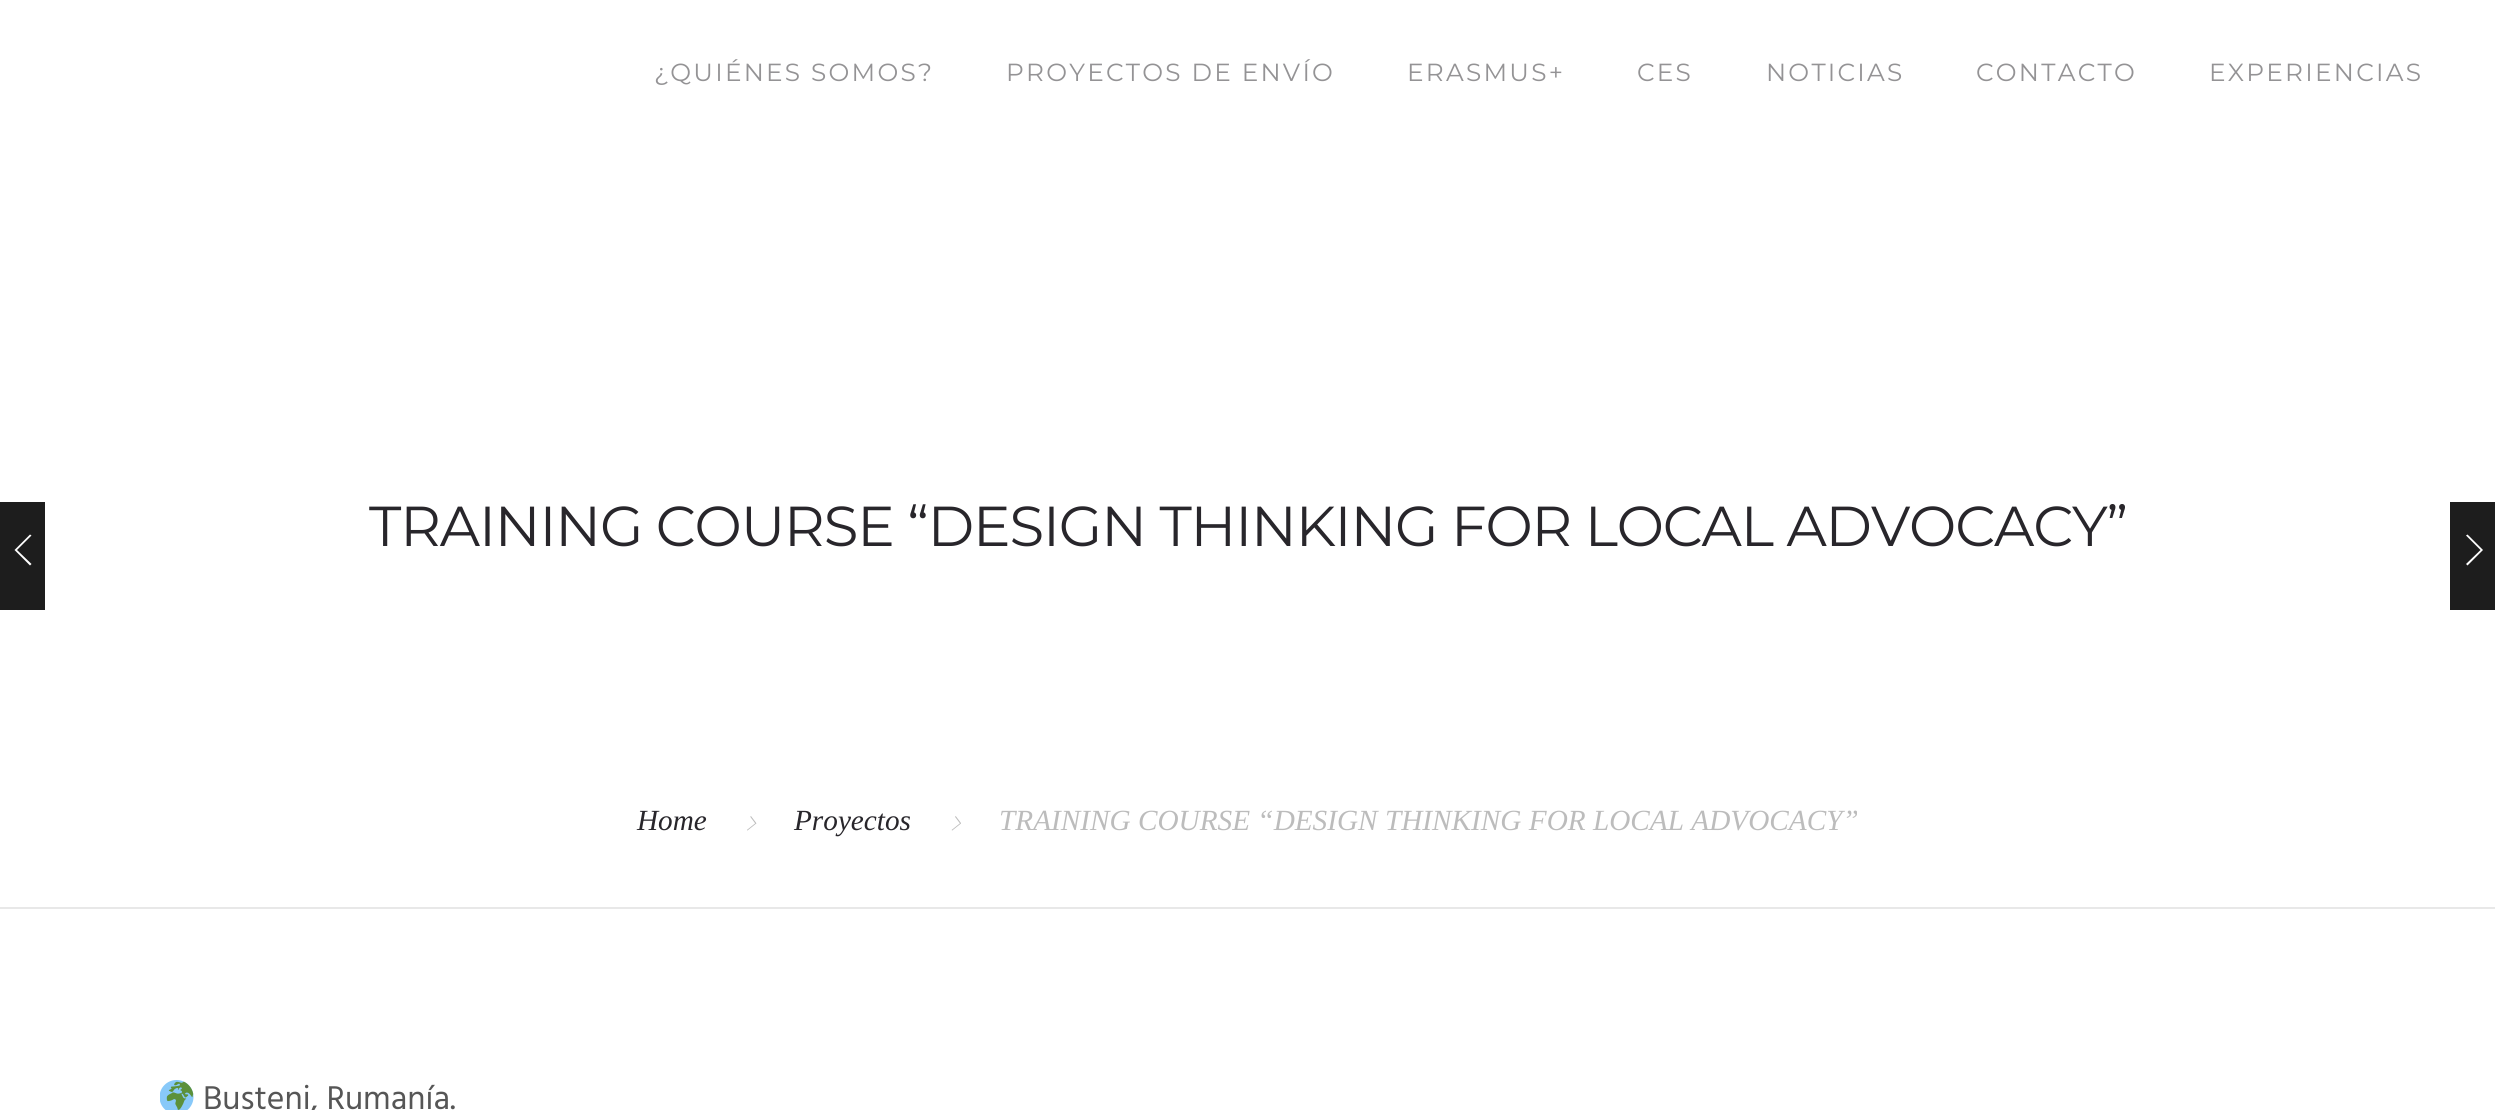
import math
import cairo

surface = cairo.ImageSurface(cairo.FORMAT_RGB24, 2495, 1110)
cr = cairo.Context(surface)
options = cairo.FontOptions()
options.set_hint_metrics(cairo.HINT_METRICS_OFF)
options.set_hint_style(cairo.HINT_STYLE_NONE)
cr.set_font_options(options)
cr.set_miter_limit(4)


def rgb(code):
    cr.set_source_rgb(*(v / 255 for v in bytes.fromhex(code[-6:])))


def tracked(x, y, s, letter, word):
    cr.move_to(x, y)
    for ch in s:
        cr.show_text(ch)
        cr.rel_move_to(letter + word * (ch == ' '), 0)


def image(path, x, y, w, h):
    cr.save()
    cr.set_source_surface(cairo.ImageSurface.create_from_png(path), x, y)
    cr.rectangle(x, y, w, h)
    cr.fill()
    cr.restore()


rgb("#ffffff")
cr.paint()
rgb("#e8e8e8")
cr.rectangle(0, 907, 2495, 2)
cr.fill()
image("img/1.png", 747, 816, 10, 15)
image("img/2.png", 951, 816, 10, 15)
rgb("#1d1d1d")
cr.rectangle(0, 502, 45, 108)
cr.fill()
rgb("#ffffff")
cr.new_path()
cr.move_to(17, 550)
cr.line_to(31.5, 564)
cr.line_to(30, 565.5)
cr.line_to(14.5, 550)
cr.line_to(30, 534.5)
cr.line_to(31.5, 535.5)
cr.close_path()
cr.fill()
rgb("#1d1d1d")
cr.rectangle(2450, 502, 45, 108)
cr.fill()
rgb("#ffffff")
cr.new_path()
cr.move_to(2483, 550)
cr.line_to(2467.5, 565.5)
cr.line_to(2466, 564)
cr.line_to(2480.5, 550)
cr.line_to(2466, 535.5)
cr.line_to(2467.5, 534.5)
cr.close_path()
cr.fill()
image("img/3.png", 160, 1080, 34, 30)
cr.select_font_face("Montserrat")
cr.set_font_size(24.75)
rgb("#949395")
for x, y, s in [
    (654, 81, "¿QUIÉNES SOMOS?"),
    (1006, 81, "PROYECTOS DE ENVÍO"),
    (1407, 81, "ERASMUS+"),
    (1637, 81, "CES"),
    (1766, 81, "NOTICIAS"),
    (1976, 81, "CONTACTO"),
    (2209, 81, "EXPERIENCIAS"),
]:
    tracked(x, y, s, 2.25, 0)
cr.set_font_size(56.25)
rgb("#28262b")
tracked(369, 546, "TRAINING COURSE “DESIGN THINKING FOR LOCAL ADVOCACY”", -1.12, 0)
cr.select_font_face("Liberation Serif", cairo.FONT_SLANT_ITALIC)
cr.set_font_size(29.25)
cr.move_to(637, 830)
cr.show_text("Home")
cr.move_to(794, 830)
cr.show_text("Proyectos")
rgb("#bcbcbc")
cr.move_to(999, 830)
cr.show_text("TRAINING COURSE “DESIGN THINKING FOR LOCAL ADVOCACY”")
cr.select_font_face("Hind")
cr.set_font_size(33.75)
rgb("#565656")
cr.move_to(203, 1109)
cr.show_text("Busteni, Rumanía.")
surface.write_to_png("page.png")
